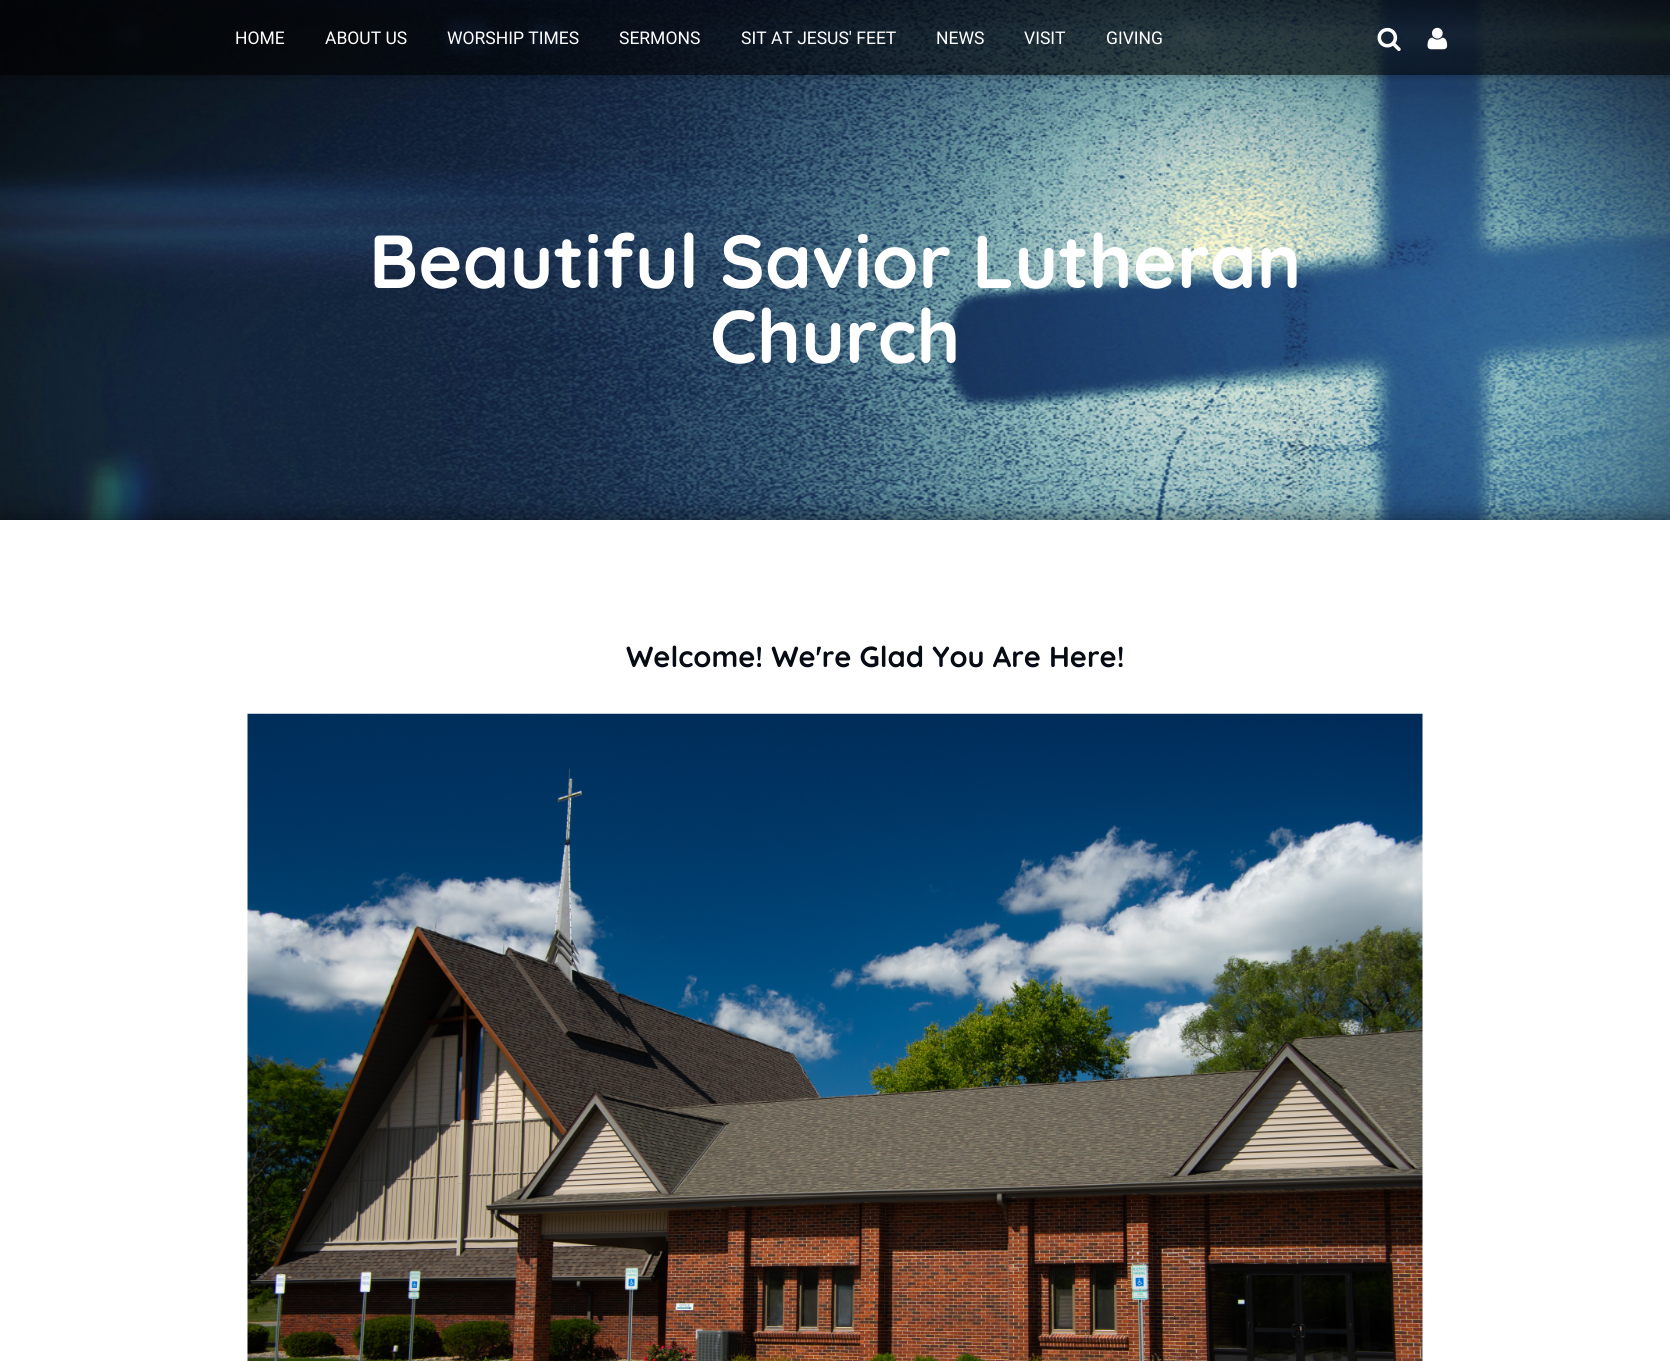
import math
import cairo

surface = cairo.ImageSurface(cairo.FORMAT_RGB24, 1670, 1361)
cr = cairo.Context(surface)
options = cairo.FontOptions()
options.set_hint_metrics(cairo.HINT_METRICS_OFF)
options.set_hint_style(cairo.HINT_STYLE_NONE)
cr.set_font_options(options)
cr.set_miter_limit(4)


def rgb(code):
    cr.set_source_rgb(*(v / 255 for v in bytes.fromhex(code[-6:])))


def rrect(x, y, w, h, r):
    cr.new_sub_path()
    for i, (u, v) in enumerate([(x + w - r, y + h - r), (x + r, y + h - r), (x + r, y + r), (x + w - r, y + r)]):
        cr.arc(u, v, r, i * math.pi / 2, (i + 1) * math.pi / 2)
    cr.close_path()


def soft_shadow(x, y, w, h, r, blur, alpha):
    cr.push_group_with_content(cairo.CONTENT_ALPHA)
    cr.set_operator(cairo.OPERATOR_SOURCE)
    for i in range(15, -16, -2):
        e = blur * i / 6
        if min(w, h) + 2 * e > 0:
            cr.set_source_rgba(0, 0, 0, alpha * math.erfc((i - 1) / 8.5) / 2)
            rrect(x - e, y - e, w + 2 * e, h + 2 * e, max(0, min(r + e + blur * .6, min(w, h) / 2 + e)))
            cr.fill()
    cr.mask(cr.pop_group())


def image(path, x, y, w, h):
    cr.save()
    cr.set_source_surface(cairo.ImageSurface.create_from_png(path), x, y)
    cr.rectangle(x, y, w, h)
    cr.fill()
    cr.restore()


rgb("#ffffff")
cr.paint()
image("img/1.png", 0, 0, 1670, 520)
cr.save()
cr.rectangle(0, 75, 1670, 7)
cr.clip()
rgb("#000000")
soft_shadow(0, 1, 1670, 75, 0, 4, 0.25)
cr.restore()
cr.set_source_rgba(0, 0, 0, 0.6)
cr.rectangle(0, 0, 1670, 75)
cr.fill()
image("img/2.png", 1377, 27, 24, 24)
image("img/3.png", 1427, 27, 21, 23)
rgb("#000000")
soft_shadow(0, 520, 1670, 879, 0, 12.5, 0.5)
rgb("#ffffff")
cr.rectangle(0, 520, 1670, 841)
cr.fill()
image("img/4.png", 247, 713, 1176, 648)
cr.select_font_face("Roboto")
cr.set_font_size(17.5)
for x, y, s in [
    (235, 44, "HOME"),
    (325, 44, "ABOUT US"),
    (447, 44, "WORSHIP TIMES"),
    (619, 44, "SERMONS"),
    (741, 44, "SIT AT JESUS' FEET"),
    (936, 44, "NEWS"),
    (1024, 44, "VISIT"),
    (1106, 44, "GIVING"),
]:
    cr.move_to(x, y)
    cr.show_text(s)
cr.select_font_face("Quicksand Light")
cr.set_font_size(75)
cr.move_to(369, 288)
cr.show_text("Beautiful Savior Lutheran")
cr.move_to(710, 363)
cr.show_text("Church")
cr.set_font_size(29)
rgb("#070b14")
cr.move_to(626, 667)
cr.show_text("Welcome! We're Glad You Are Here!")
surface.write_to_png("page.png")
